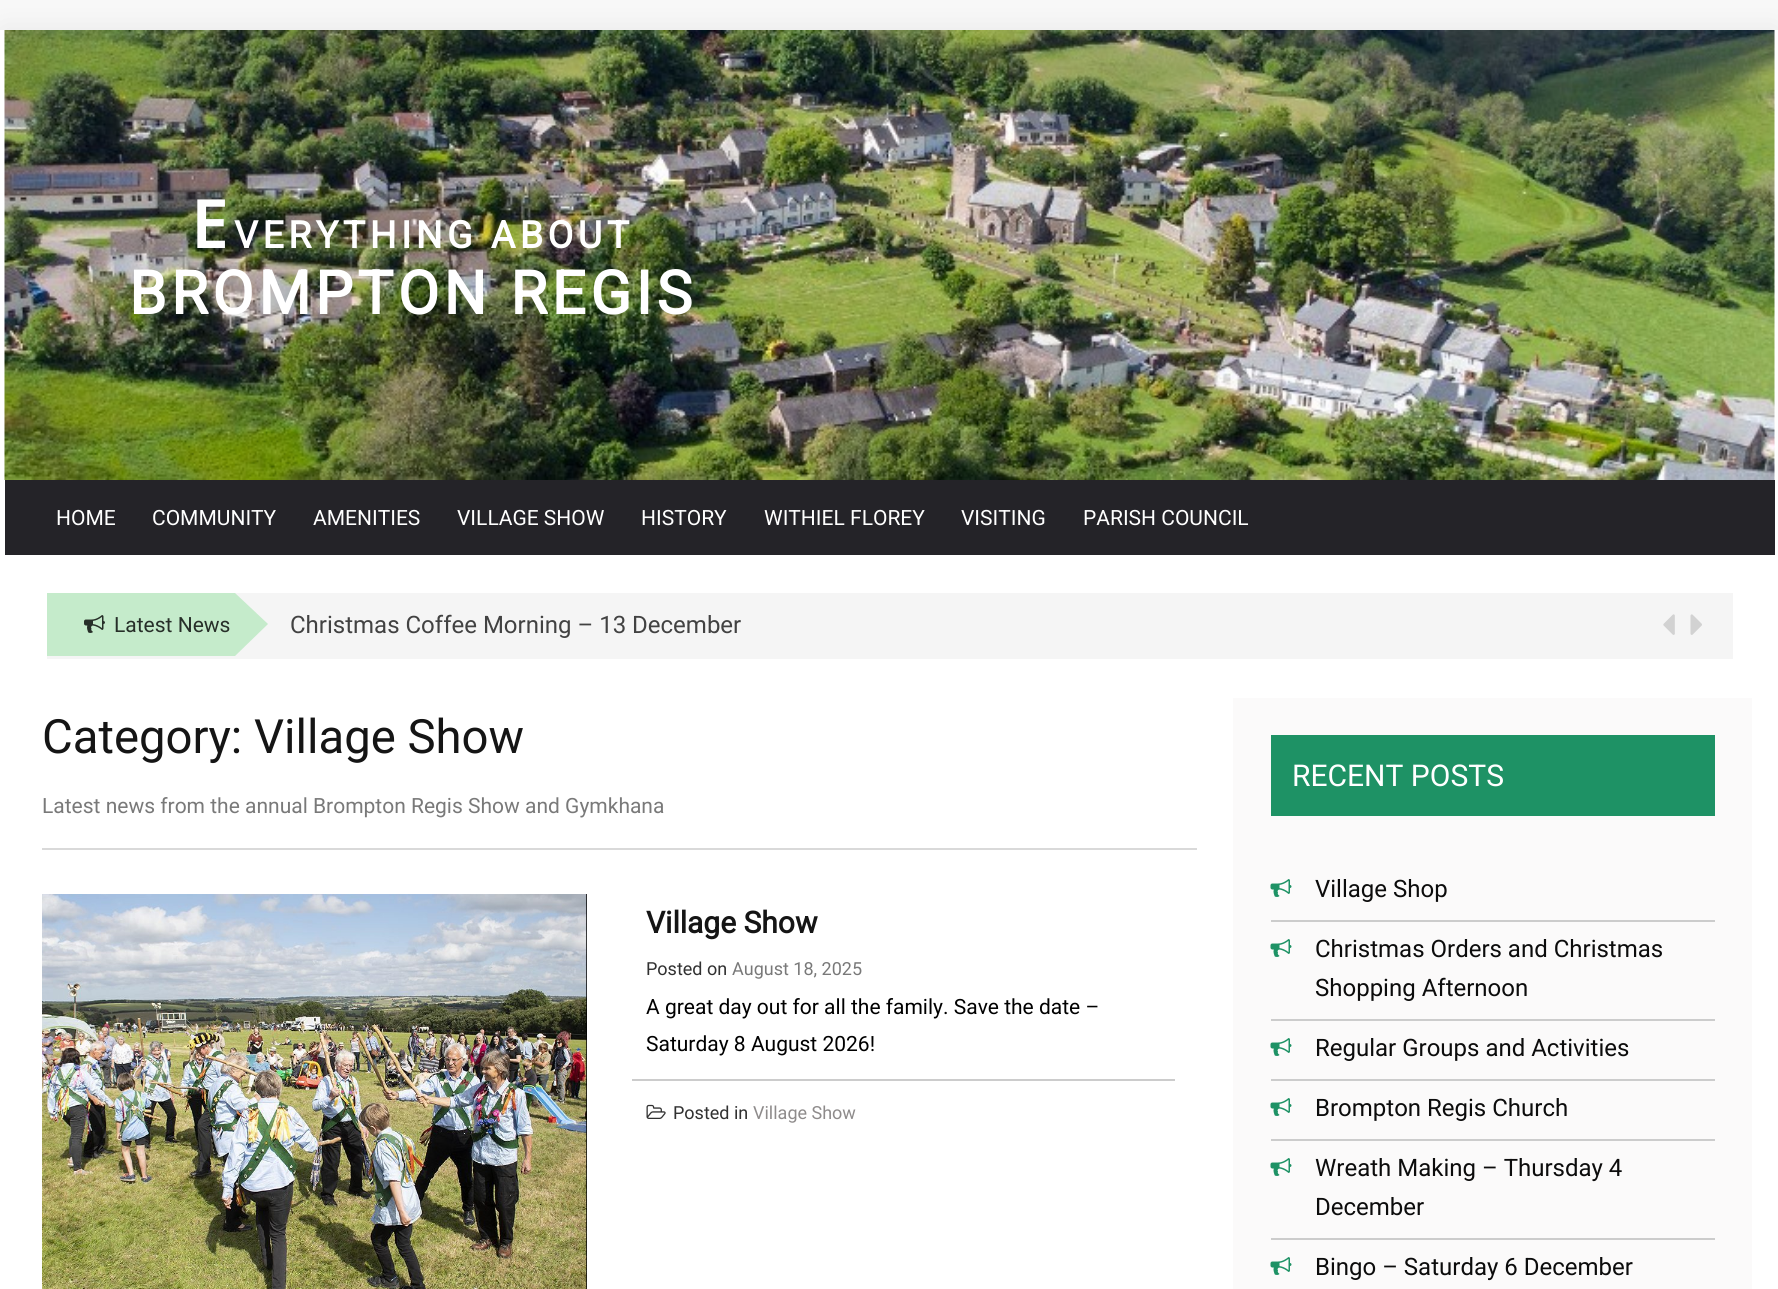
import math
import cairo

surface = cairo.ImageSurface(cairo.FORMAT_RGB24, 1778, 1289)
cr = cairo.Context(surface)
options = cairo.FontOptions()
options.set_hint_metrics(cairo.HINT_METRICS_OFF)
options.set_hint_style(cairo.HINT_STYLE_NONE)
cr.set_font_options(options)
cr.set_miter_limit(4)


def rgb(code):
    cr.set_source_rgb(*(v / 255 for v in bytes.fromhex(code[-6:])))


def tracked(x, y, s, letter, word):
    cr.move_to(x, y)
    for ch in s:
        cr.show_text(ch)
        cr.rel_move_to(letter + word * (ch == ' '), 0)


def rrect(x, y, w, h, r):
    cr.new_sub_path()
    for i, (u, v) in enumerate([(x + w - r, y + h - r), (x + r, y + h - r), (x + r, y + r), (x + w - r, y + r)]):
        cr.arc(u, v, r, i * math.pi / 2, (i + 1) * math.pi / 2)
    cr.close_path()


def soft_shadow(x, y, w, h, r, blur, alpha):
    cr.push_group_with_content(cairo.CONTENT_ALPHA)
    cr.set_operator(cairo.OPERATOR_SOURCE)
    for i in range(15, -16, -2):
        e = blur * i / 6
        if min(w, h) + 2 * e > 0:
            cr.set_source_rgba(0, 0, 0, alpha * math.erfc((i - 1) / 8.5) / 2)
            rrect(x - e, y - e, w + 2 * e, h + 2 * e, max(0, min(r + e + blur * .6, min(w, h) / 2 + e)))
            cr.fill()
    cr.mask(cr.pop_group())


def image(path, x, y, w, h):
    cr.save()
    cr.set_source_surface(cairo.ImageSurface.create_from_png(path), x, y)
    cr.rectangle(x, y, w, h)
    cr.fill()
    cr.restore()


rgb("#f8f8f8")
cr.paint()
rgb("#000000")
soft_shadow(3, 30, 1773, 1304, 0, 15, 0.07)
rgb("#ffffff")
cr.rectangle(0, 30, 1778, 1259)
cr.fill()
image("img/1.png", 4, 30, 1771, 450)
rgb("#242328")
cr.rectangle(5, 480, 1770, 75)
cr.fill()
rgb("#f5f5f5")
cr.rectangle(47, 593, 1686, 66)
cr.fill()
rgb("#c5ebcb")
cr.new_path()
cr.move_to(47, 593)
cr.line_to(235, 593)
cr.line_to(268, 624)
cr.line_to(235, 656)
cr.line_to(47, 656)
cr.close_path()
cr.fill()
image("img/2.png", 84, 615, 21, 18)
image("img/3.png", 1663, 614, 12, 21)
image("img/4.png", 1690, 614, 12, 21)
rgb("#d9d9d9")
cr.rectangle(42, 848, 1155, 2)
cr.fill()
rgb("#000000")
cr.rectangle(586, 894, 1, 395)
cr.fill()
image("img/5.png", 42, 894, 545, 395)
rgb("#cccccc")
cr.rectangle(632, 1079, 543, 2)
cr.fill()
image("img/6.png", 646, 1104, 20, 15)
for x, y, w, h, color in [
    (1233, 698, 519, 591, "#fbfafa"),
    (1271, 735, 444, 81, "#1e9265"),
    (1271, 920, 444, 2, "#cccccc"),
]:
    rgb(color)
    cr.rectangle(x, y, w, h)
    cr.fill()
image("img/7.png", 1270, 879, 22, 18)
cr.rectangle(1271, 1019, 444, 2)
cr.fill()
image("img/7.png", 1270, 939, 22, 18)
cr.rectangle(1271, 1079, 444, 2)
cr.fill()
image("img/7.png", 1270, 1038, 22, 18)
cr.rectangle(1271, 1139, 444, 2)
cr.fill()
image("img/7.png", 1270, 1098, 22, 18)
cr.rectangle(1271, 1238, 444, 2)
cr.fill()
image("img/7.png", 1270, 1158, 22, 18)
image("img/7.png", 1270, 1257, 22, 18)
cr.select_font_face("Noto Sans SemiBold")
cr.set_font_size(68)
rgb("#ffffff")
tracked(191, 248, "E", 4.5, 0)
cr.select_font_face("Roboto", cairo.FONT_SLANT_NORMAL, cairo.FONT_WEIGHT_BOLD)
cr.set_font_size(37.5)
tracked(234, 248, "VERYTHING ABOUT", 4.5, 0)
cr.set_font_size(60)
tracked(129, 314, "BROMPTON REGIS", 4.5, 0)
cr.select_font_face("Roboto")
cr.set_font_size(21)
for x, y, s in [
    (56, 525, "HOME"),
    (152, 525, "COMMUNITY"),
    (313, 525, "AMENITIES"),
    (457, 525, "VILLAGE SHOW"),
    (641, 525, "HISTORY"),
    (764, 525, "WITHIEL FLOREY"),
    (961, 525, "VISITING"),
    (1083, 525, "PARISH COUNCIL"),
]:
    cr.move_to(x, y)
    cr.show_text(s)
rgb("#272f29")
cr.move_to(114, 632)
cr.show_text("Latest News")
cr.set_font_size(24)
rgb("#424242")
cr.move_to(290, 633)
cr.show_text("Christmas Coffee Morning – 13 December")
cr.set_font_size(47.25)
rgb("#151515")
cr.move_to(42, 753)
cr.show_text("Category: Village Show")
cr.set_font_size(21)
rgb("#797979")
cr.move_to(42, 813)
cr.show_text("Latest news from the annual Brompton Regis Show and Gymkhana")
cr.select_font_face("Roboto", cairo.FONT_SLANT_NORMAL, cairo.FONT_WEIGHT_BOLD)
cr.set_font_size(30)
rgb("#151515")
cr.move_to(646, 933)
cr.show_text("Village Show")
cr.select_font_face("Roboto")
cr.set_font_size(18)
rgb("#313131")
cr.move_to(646, 975)
cr.show_text("Posted on")
rgb("#797979")
cr.move_to(732, 975)
cr.show_text("August 18, 2025")
cr.set_font_size(21)
rgb("#000000")
cr.move_to(646, 1014)
cr.show_text("A great day out for all the family. Save the date –")
cr.move_to(646, 1051)
cr.show_text("Saturday 8 August 2026!")
cr.set_font_size(18)
rgb("#313131")
cr.move_to(673, 1119)
cr.show_text("Posted in")
rgb("#8e8b8b")
cr.move_to(753, 1119)
cr.show_text("Village Show")
cr.set_font_size(30)
rgb("#ffffff")
cr.move_to(1292, 786)
cr.show_text("RECENT POSTS")
cr.set_font_size(24)
rgb("#0c0c0c")
for x, y, s in [
    (1315, 897, "Village Shop"),
    (1315, 957, "Christmas Orders and Christmas"),
    (1315, 996, "Shopping Afternoon"),
    (1315, 1056, "Regular Groups and Activities"),
    (1315, 1116, "Brompton Regis Church"),
    (1315, 1176, "Wreath Making – Thursday 4"),
    (1315, 1215, "December"),
    (1315, 1275, "Bingo – Saturday 6 December"),
]:
    cr.move_to(x, y)
    cr.show_text(s)
surface.write_to_png("page.png")
